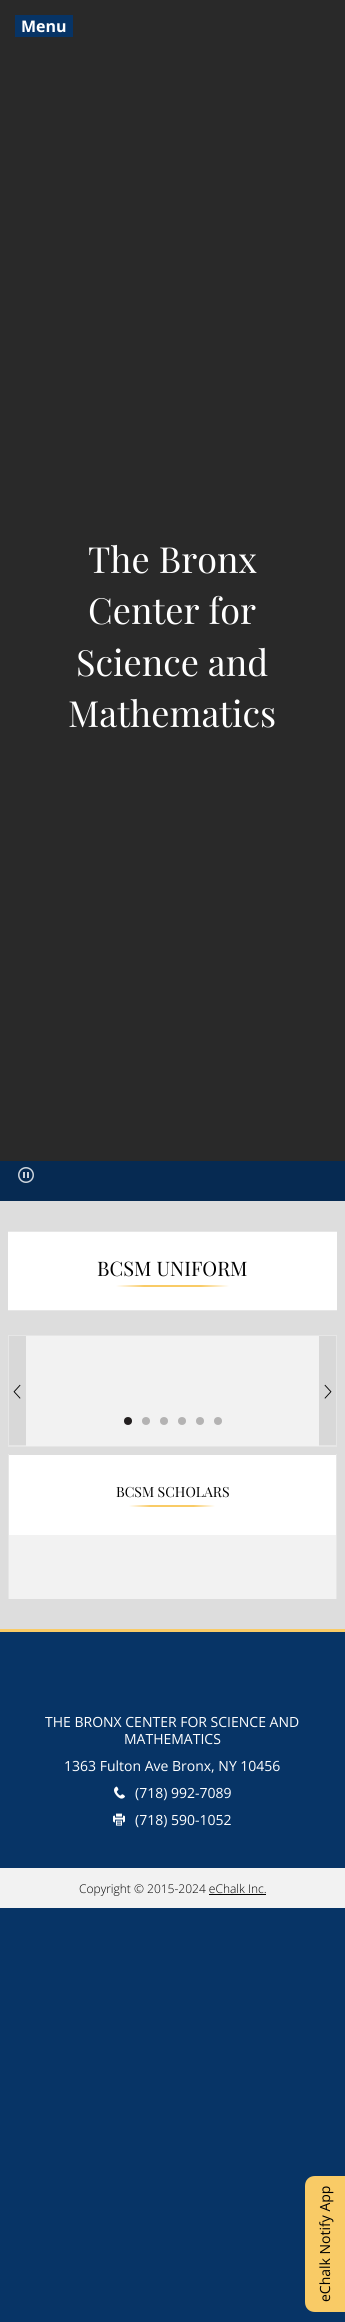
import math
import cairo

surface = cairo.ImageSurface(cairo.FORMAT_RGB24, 345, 2322)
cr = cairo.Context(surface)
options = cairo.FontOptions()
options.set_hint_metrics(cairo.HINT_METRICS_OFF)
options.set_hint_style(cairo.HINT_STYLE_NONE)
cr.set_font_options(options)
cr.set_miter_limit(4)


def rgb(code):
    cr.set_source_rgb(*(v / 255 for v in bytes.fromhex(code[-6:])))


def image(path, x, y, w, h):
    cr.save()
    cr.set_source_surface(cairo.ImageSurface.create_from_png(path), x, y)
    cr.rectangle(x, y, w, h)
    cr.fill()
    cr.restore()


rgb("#073466")
cr.paint()
for x, y, w, h, color in [
    (0, 1161, 345, 40, "#062a52"),
    (0, 0, 345, 1161, "#292929"),
    (15, 15, 58, 22, "#073466"),
]:
    rgb(color)
    cr.rectangle(x, y, w, h)
    cr.fill()
image("img/1.png", 18, 1167, 16, 16)
rgb("#dddddd")
cr.rectangle(8, 1201, 329, 428)
cr.fill()
rgb("#ffffff")
cr.rectangle(8, 1232, 329, 78)
cr.fill()
cr.rectangle(0.5, 1231.5, 344, 79)
rgb("#e6e6e6")
cr.set_line_width(1)
cr.stroke()
rgb("#dddddd")
cr.rectangle(0, 1201, 8, 428)
cr.fill()
gradient = cairo.LinearGradient(116, 1286, 229, 1286)
gradient.add_color_stop_rgba(0, 1, 1, 1, 1)
gradient.add_color_stop_rgba(0.25, 0.976, 0.796, 0.4, 1)
gradient.add_color_stop_rgba(0.75, 0.976, 0.796, 0.4, 1)
gradient.add_color_stop_rgba(1, 1, 1, 1, 1)
cr.set_source(gradient)
cr.rectangle(116, 1285, 113, 2)
cr.fill()
for x, y, w, h, color in [
    (26, 1336, 293, 110, "#f2f2f2"),
    (9, 1335, 327, 1, "#e6e6e6"),
    (9, 1446, 327, 1, "#e6e6e6"),
    (8, 1335, 1, 112, "#e6e6e6"),
    (336, 1335, 1, 112, "#e6e6e6"),
    (9, 1336, 17, 109, "#d8d8d8"),
    (8, 1445, 18, 1, "#e6e6e6"),
]:
    rgb(color)
    cr.rectangle(x, y, w, h)
    cr.fill()
image("img/2.png", 13, 1384, 8, 15)
rgb("#d8d8d8")
cr.rectangle(319, 1336, 17, 109)
cr.fill()
rgb("#e6e6e6")
cr.rectangle(319, 1445, 18, 1)
cr.fill()
image("img/3.png", 324, 1384, 8, 15)
rgb("#231f20")
cr.arc(128, 1421, 4, 0, 2 * math.pi)
cr.fill()
rgb("#b4b3b3")
cr.arc(146, 1421, 4, 0, 2 * math.pi)
cr.fill()
cr.arc(164, 1421, 4, 0, 2 * math.pi)
cr.fill()
cr.arc(182, 1421, 4, 0, 2 * math.pi)
cr.fill()
cr.arc(200, 1421, 4, 0, 2 * math.pi)
cr.fill()
cr.arc(218, 1421, 4, 0, 2 * math.pi)
cr.fill()
for x, y, w, h, color in [
    (9, 1535, 327, 64, "#f2f2f2"),
    (8, 1454, 1, 145, "#e6e6e6"),
    (9, 1455, 327, 80, "#ffffff"),
]:
    rgb(color)
    cr.rectangle(x, y, w, h)
    cr.fill()
gradient = cairo.LinearGradient(129, 1506, 215, 1506)
gradient.add_color_stop_rgba(0, 1, 1, 1, 1)
gradient.add_color_stop_rgba(0.25, 0.976, 0.796, 0.4, 1)
gradient.add_color_stop_rgba(0.75, 0.976, 0.796, 0.4, 1)
gradient.add_color_stop_rgba(1, 1, 1, 1, 1)
cr.set_source(gradient)
cr.rectangle(129, 1505, 86, 2)
cr.fill()
for x, y, w, h, color in [
    (336, 1454, 1, 145, "#e6e6e6"),
    (337, 1201, 8, 428, "#dddddd"),
    (0, 1629, 345, 3, "#f9cb66"),
    (0, 1868, 345, 40, "#f2f2f2"),
]:
    rgb(color)
    cr.rectangle(x, y, w, h)
    cr.fill()
image("img/4.png", 114, 1786, 11, 13)
image("img/5.png", 113, 1813, 12, 13)
rgb("#000000")
cr.rectangle(209, 1894, 57, 1)
cr.fill()
rgb("#f9cb66")
cr.new_path()
cr.move_to(305, 2302)
cr.line_to(305, 2186)
cr.curve_to(305, 2180, 309, 2176, 315, 2176)
cr.line_to(345, 2176)
cr.line_to(345, 2312)
cr.line_to(315, 2312)
cr.curve_to(309, 2312, 305, 2308, 305, 2302)
cr.close_path()
cr.fill()
cr.select_font_face("Open Sans", cairo.FONT_SLANT_NORMAL, cairo.FONT_WEIGHT_BOLD)
cr.set_font_size(16)
rgb("#ffffff")
cr.move_to(21, 32)
cr.show_text("Menu")
cr.select_font_face("Playfair Display")
cr.set_font_size(36)
for x, y, s in [
    (88, 573, "The Bronx"),
    (88, 624, "Center for"),
    (76, 676, "Science and"),
    (68, 727, "Mathematics"),
]:
    cr.move_to(x, y)
    cr.show_text(s)
cr.set_font_size(20)
rgb("#000000")
cr.move_to(97, 1276)
cr.show_text("BCSM UNIFORM")
cr.set_font_size(14)
cr.move_to(116, 1497)
cr.show_text("BCSM SCHOLARS")
cr.select_font_face("Open Sans")
rgb("#ffffff")
for x, y, s in [
    (45, 1727, "THE BRONX CENTER FOR SCIENCE AND"),
    (124, 1744, "MATHEMATICS"),
    (64, 1771, "1363 Fulton Ave Bronx, NY 10456"),
    (135, 1798, "(718) 992-7089"),
    (135, 1825, "(718) 590-1052"),
]:
    cr.move_to(x, y)
    cr.show_text(s)
cr.select_font_face("Open Sans Light")
cr.set_font_size(12)
rgb("#000000")
cr.move_to(79, 1893)
cr.show_text("Copyright © 2015-2024 eChalk Inc.")
cr.select_font_face("Open Sans")
cr.set_font_size(14)
cr.save()
cr.translate(330, 2302)
cr.rotate(-90 * math.pi / 180)
cr.move_to(0, 0)
cr.show_text("eChalk Notify App")
cr.restore()
surface.write_to_png("page.png")
